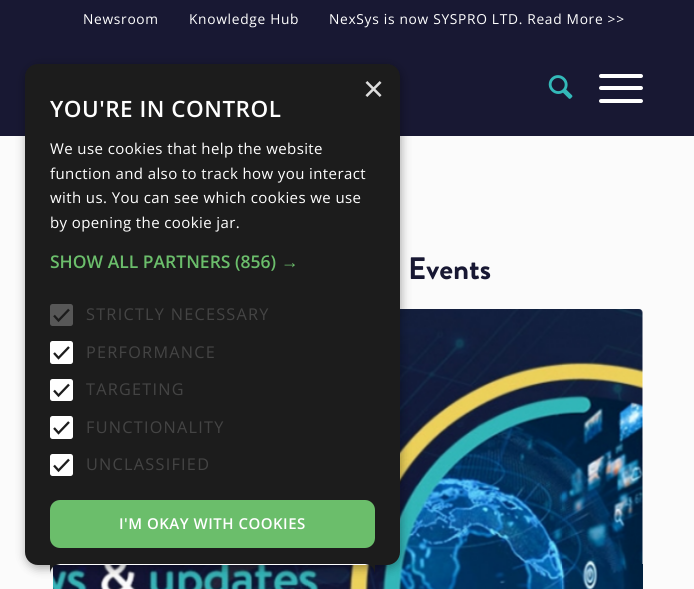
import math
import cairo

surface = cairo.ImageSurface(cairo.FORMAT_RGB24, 694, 589)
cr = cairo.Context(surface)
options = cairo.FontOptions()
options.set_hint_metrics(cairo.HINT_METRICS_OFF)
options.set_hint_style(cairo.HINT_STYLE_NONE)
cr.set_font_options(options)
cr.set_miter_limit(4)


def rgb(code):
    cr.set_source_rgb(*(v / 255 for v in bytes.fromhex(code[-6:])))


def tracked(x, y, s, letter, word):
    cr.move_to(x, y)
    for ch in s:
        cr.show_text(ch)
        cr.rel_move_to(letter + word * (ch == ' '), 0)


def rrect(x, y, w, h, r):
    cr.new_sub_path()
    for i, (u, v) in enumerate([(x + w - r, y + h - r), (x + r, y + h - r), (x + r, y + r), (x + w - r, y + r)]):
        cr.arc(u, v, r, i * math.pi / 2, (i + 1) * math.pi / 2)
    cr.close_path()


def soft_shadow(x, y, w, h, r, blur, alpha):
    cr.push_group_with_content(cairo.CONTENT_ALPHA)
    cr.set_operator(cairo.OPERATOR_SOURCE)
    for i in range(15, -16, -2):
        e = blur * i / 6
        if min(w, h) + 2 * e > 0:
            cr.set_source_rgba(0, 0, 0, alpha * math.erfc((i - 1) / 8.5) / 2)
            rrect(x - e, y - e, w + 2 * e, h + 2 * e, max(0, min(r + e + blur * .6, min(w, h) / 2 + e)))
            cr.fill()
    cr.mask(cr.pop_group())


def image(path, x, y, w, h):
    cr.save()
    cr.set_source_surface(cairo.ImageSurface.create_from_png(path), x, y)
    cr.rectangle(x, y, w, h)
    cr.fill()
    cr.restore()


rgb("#fbfbfb")
cr.paint()
rgb("#181833")
cr.rectangle(0, 0, 694, 136)
cr.fill()
image("img/1.png", 548, 75, 25, 24)
rgb("#ffffff")
rrect(599, 86, 44, 4, 2)
cr.fill()
rrect(599, 74, 44, 4, 2)
cr.fill()
rrect(599, 99, 44, 4, 2)
cr.fill()
image("img/2.png", 53, 309, 590, 280)
rgb("#000000")
soft_shadow(26, 66, 375, 502, 13, 5, 0.35)
rgb("#1c1c1c")
rrect(25, 64, 375, 501, 13)
cr.fill()
rgb("#575757")
rrect(50, 304, 23, 22, 2.5)
cr.fill()
cr.new_path()
cr.move_to(54, 315.5)
cr.line_to(58.5, 320.5)
cr.line_to(69, 309.5)
rgb("#1c1c1c")
cr.set_line_width(2.3)
cr.stroke()
rgb("#ffffff")
rrect(51.5, 342.5, 20, 20, 1)
cr.fill_preserve()
cr.set_line_width(3)
cr.stroke()
cr.new_path()
cr.move_to(54, 353)
cr.line_to(58.5, 358)
cr.line_to(69, 347)
rgb("#1c1c1c")
cr.set_line_width(2.3)
cr.stroke()
rgb("#ffffff")
rrect(51.5, 380.5, 20, 19, 1)
cr.fill_preserve()
cr.set_line_width(3)
cr.stroke()
cr.new_path()
cr.move_to(54, 390.5)
cr.line_to(58.5, 395.5)
cr.line_to(69, 384.5)
rgb("#1c1c1c")
cr.set_line_width(2.3)
cr.stroke()
rgb("#ffffff")
rrect(51.5, 417.5, 20, 20, 1)
cr.fill_preserve()
cr.set_line_width(3)
cr.stroke()
cr.new_path()
cr.move_to(54, 428)
cr.line_to(58.5, 433)
cr.line_to(69, 422)
rgb("#1c1c1c")
cr.set_line_width(2.3)
cr.stroke()
rgb("#ffffff")
rrect(51.5, 455.5, 20, 19, 1)
cr.fill_preserve()
cr.set_line_width(3)
cr.stroke()
cr.new_path()
cr.move_to(54, 465.5)
cr.line_to(58.5, 470.5)
cr.line_to(69, 459.5)
rgb("#1c1c1c")
cr.set_line_width(2.3)
cr.stroke()
rgb("#6bbe6b")
rrect(50, 500, 325, 48, 10)
cr.fill()
rgb("#1c1c1c")
cr.new_path()
cr.move_to(60, 564)
cr.line_to(365, 564)
cr.curve_to(370.5, 564, 375, 568.5, 375, 574)
cr.line_to(375, 565)
cr.line_to(50, 565)
cr.line_to(50, 574)
cr.curve_to(50, 568.5, 54.5, 564, 60, 564)
cr.close_path()
cr.fill()
rgb("#ffffff")
cr.new_path()
cr.move_to(60, 564)
cr.line_to(56, 565)
cr.line_to(369, 565)
cr.line_to(365, 564)
cr.close_path()
cr.fill()
cr.select_font_face("Open Sans")
cr.set_font_size(13.75)
for x, y, s in [
    (83, 24, "Newsroom"),
    (189, 24, "Knowledge Hub"),
    (329, 24, "NexSys is now SYSPRO LTD. Read More >>"),
]:
    tracked(x, y, s, 0.7, 0)
cr.select_font_face("Brandon Grotesque", cairo.FONT_SLANT_NORMAL, cairo.FONT_WEIGHT_BOLD)
cr.set_font_size(31)
rgb("#181833")
cr.move_to(408, 279)
cr.show_text("Events")
cr.select_font_face("Liberation Sans")
cr.set_font_size(36)
rgb("#dddddd")
cr.move_to(363, 101)
cr.show_text("×")
cr.select_font_face("Open Sans SemiBold")
cr.set_font_size(22.5)
rgb("#ffffff")
tracked(50, 117, "YOU'RE IN CONTROL", 0.5, 0)
cr.select_font_face("Open Sans")
cr.set_font_size(15)
for x, y, s in [
    (50, 154, "We use cookies that help the website"),
    (50, 179, "function and also to track how you interact"),
    (50, 203, "with us. You can see which cookies we use"),
    (50, 228, "by opening the cookie jar."),
]:
    tracked(x, y, s, 0.4, 0)
cr.select_font_face("Open Sans SemiBold")
cr.set_font_size(17.5)
rgb("#6bbe6b")
cr.move_to(50, 268)
cr.show_text("SHOW ALL PARTNERS (856)")
cr.select_font_face("Liberation Sans", cairo.FONT_SLANT_NORMAL, cairo.FONT_WEIGHT_BOLD)
cr.move_to(281, 268)
cr.show_text("→")
cr.select_font_face("Open Sans")
cr.set_font_size(16.25)
rgb("#444444")
for x, y, s in [
    (86, 320, "STRICTLY NECESSARY"),
    (86, 358, "PERFORMANCE"),
    (86, 395, "TARGETING"),
    (86, 433, "FUNCTIONALITY"),
    (86, 470, "UNCLASSIFIED"),
]:
    tracked(x, y, s, 1.25, 0)
cr.select_font_face("Open Sans SemiBold")
cr.set_font_size(15)
rgb("#ffffff")
tracked(119, 529, "I'M OKAY WITH COOKIES", 0.5, 0)
surface.write_to_png("page.png")
